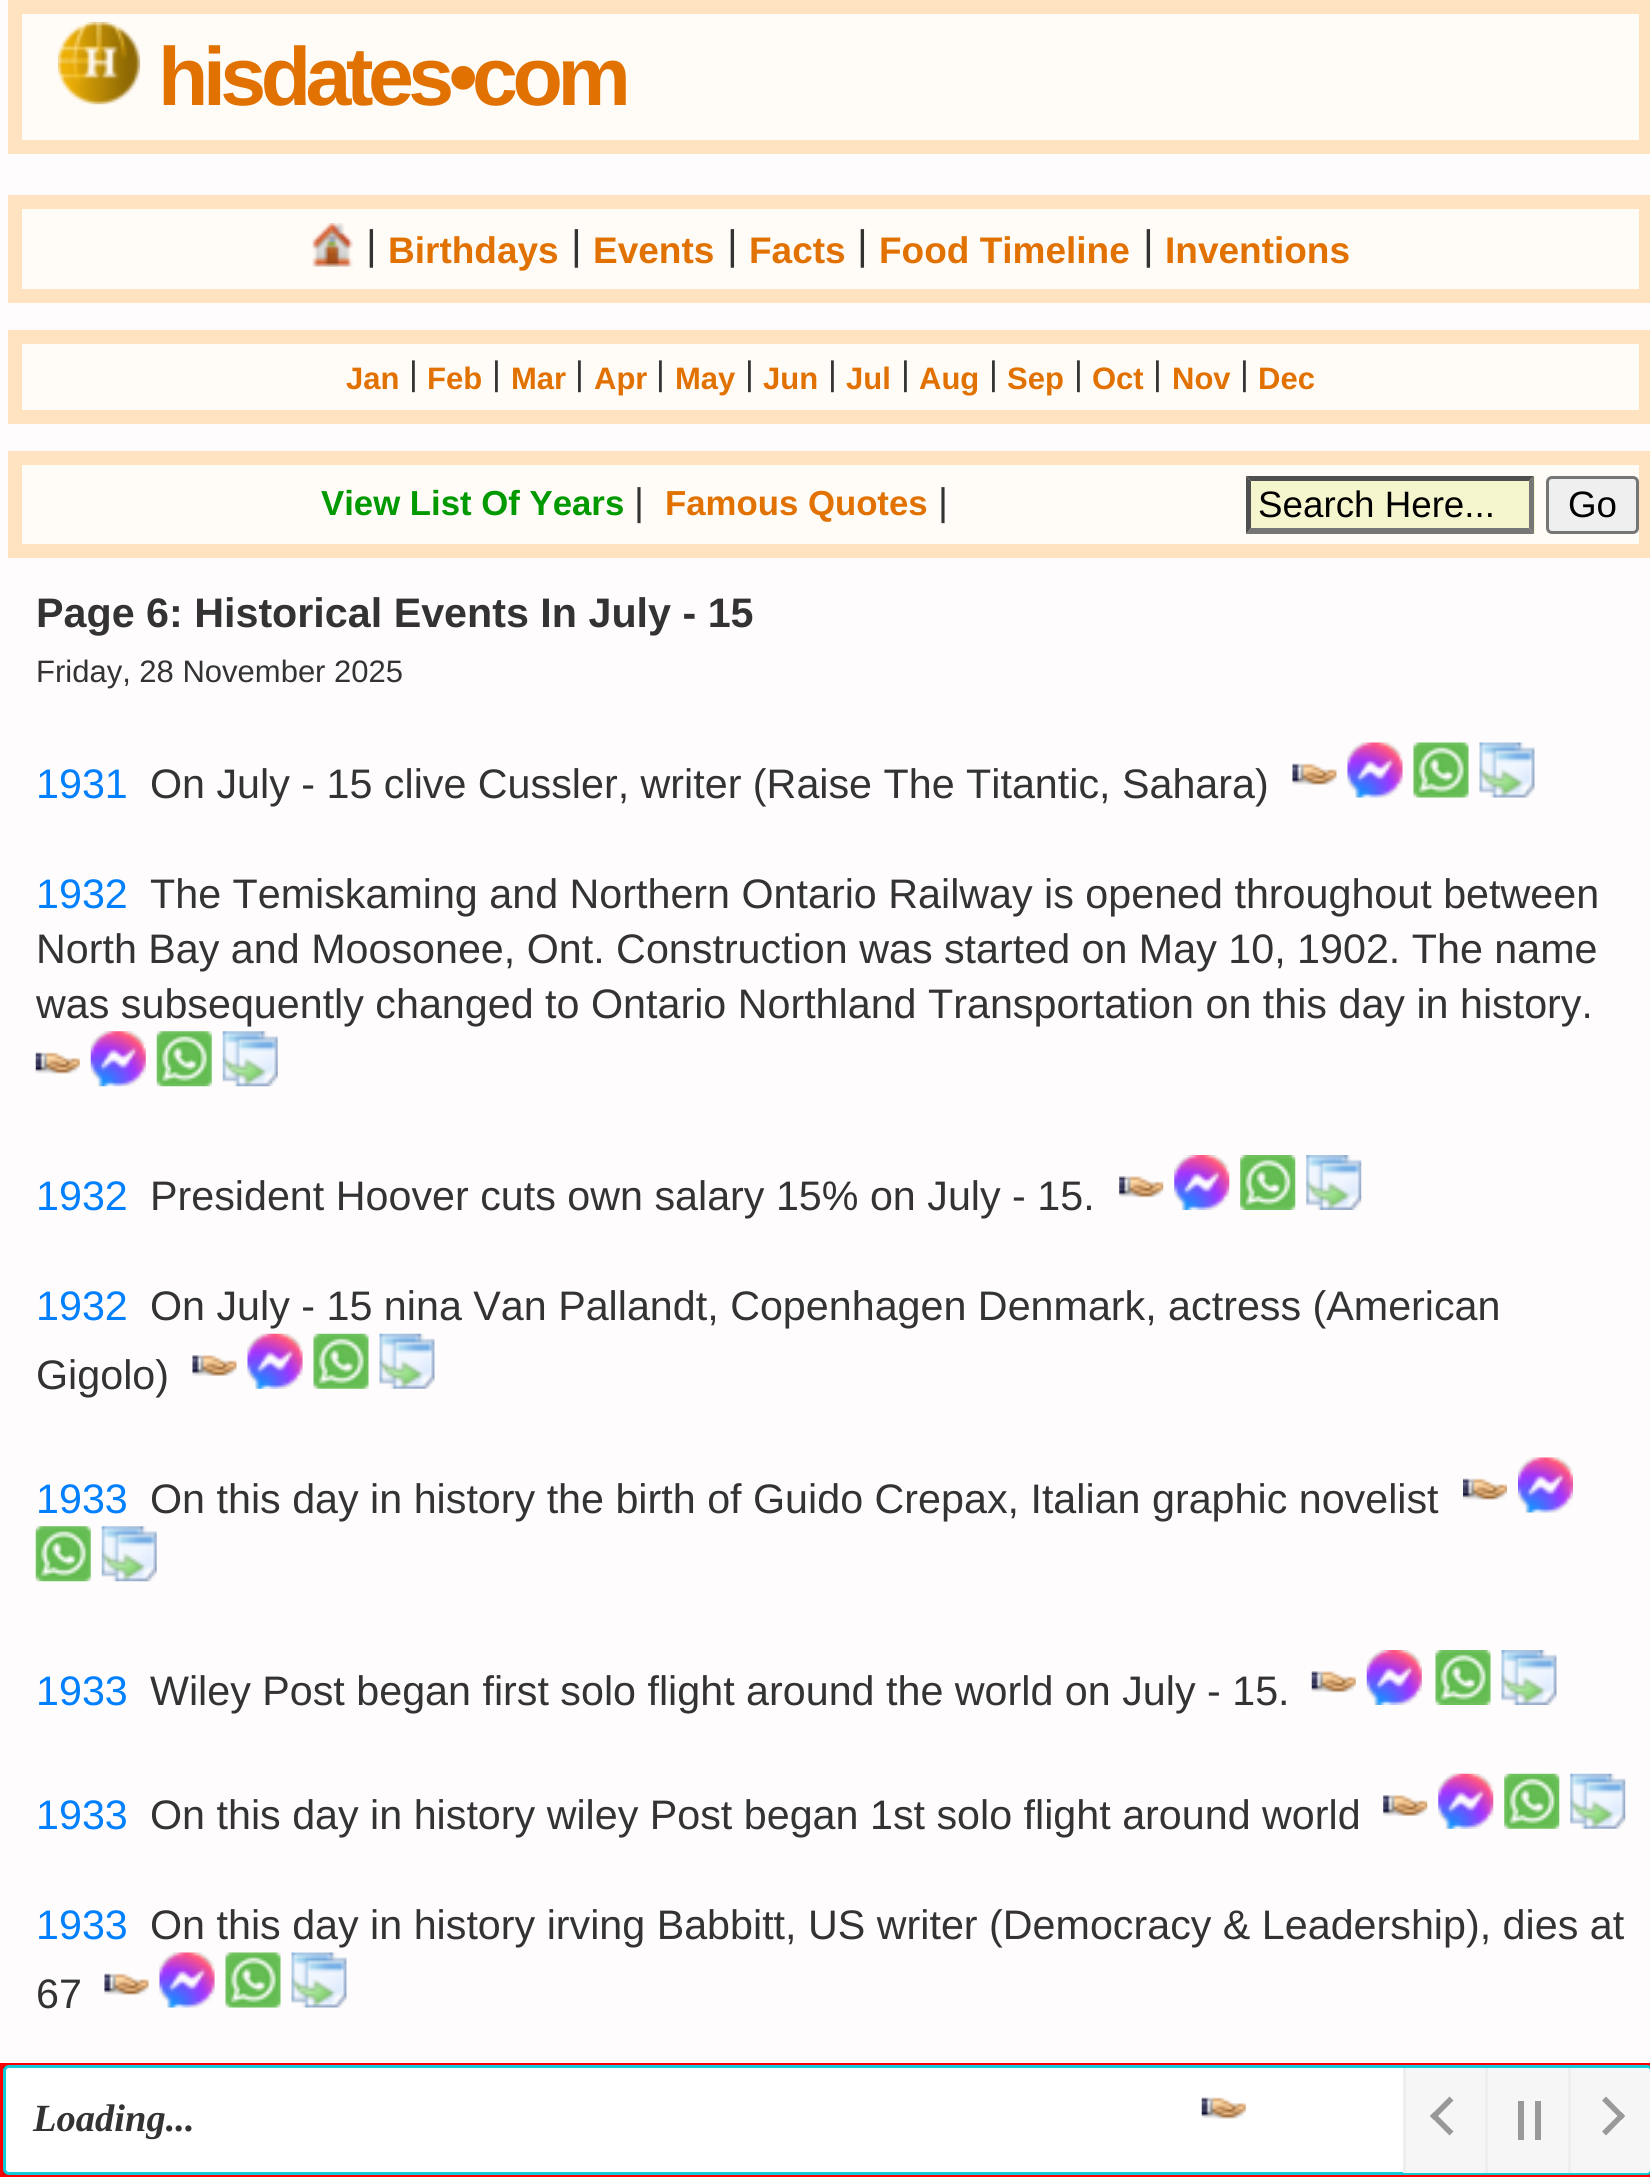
import math
import cairo

surface = cairo.ImageSurface(cairo.FORMAT_RGB24, 1650, 2177)
cr = cairo.Context(surface)
options = cairo.FontOptions()
options.set_hint_metrics(cairo.HINT_METRICS_OFF)
options.set_hint_style(cairo.HINT_STYLE_NONE)
cr.set_font_options(options)
cr.set_miter_limit(4)


def rgb(code):
    cr.set_source_rgb(*(v / 255 for v in bytes.fromhex(code[-6:])))


def tracked(x, y, s, letter, word):
    cr.move_to(x, y)
    for ch in s:
        cr.show_text(ch)
        cr.rel_move_to(letter + word * (ch == ' '), 0)


def rrect(x, y, w, h, r):
    cr.new_sub_path()
    for i, (u, v) in enumerate([(x + w - r, y + h - r), (x + r, y + h - r), (x + r, y + r), (x + w - r, y + r)]):
        cr.arc(u, v, r, i * math.pi / 2, (i + 1) * math.pi / 2)
    cr.close_path()


def image(path, x, y, w, h):
    cr.save()
    cr.set_source_surface(cairo.ImageSurface.create_from_png(path), x, y)
    cr.rectangle(x, y, w, h)
    cr.fill()
    cr.restore()


rgb("#fefcfc")
cr.paint()
rgb("#fffbf6")
cr.rectangle(15, 7, 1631, 140)
cr.fill_preserve()
rgb("#ffe3c0")
cr.set_line_width(14)
cr.stroke()
image("img/1.png", 57, 22, 84, 83)
rgb("#fffbf6")
cr.rectangle(15, 202, 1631, 94)
cr.fill_preserve()
rgb("#ffe3c0")
cr.stroke()
image("img/2.png", 311, 223, 42, 44)
rgb("#fffbf6")
cr.rectangle(15, 337, 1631, 80)
cr.fill_preserve()
rgb("#ffe3c0")
cr.stroke()
rgb("#fffbf6")
cr.rectangle(15, 458, 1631, 93)
cr.fill_preserve()
rgb("#ffe3c0")
cr.stroke()
rgb("#f5f6ce")
cr.rectangle(1246, 476, 289, 58)
cr.fill()
rgb("#4f4f4f")
cr.new_path()
cr.move_to(1246, 476)
cr.line_to(1534, 476)
cr.line_to(1529, 481)
cr.line_to(1251, 481)
cr.close_path()
cr.fill()
rgb("#767676")
cr.new_path()
cr.move_to(1534, 476)
cr.line_to(1534, 534)
cr.line_to(1529, 528)
cr.line_to(1529, 481)
cr.close_path()
cr.fill()
cr.new_path()
cr.move_to(1534, 534)
cr.line_to(1246, 534)
cr.line_to(1251, 528)
cr.line_to(1529, 528)
cr.close_path()
cr.fill()
rgb("#4f4f4f")
cr.new_path()
cr.move_to(1246, 534)
cr.line_to(1246, 476)
cr.line_to(1251, 481)
cr.line_to(1251, 528)
cr.close_path()
cr.fill()
rgb("#efefef")
rrect(1547.5, 477.5, 90, 55, 4.5)
cr.fill_preserve()
rgb("#767676")
cr.set_line_width(3)
cr.stroke()
image("img/3.png", 1292, 763, 45, 22)
image("img/4.png", 1347, 742, 56, 56)
image("img/5.png", 1413, 742, 56, 56)
image("img/6.png", 1479, 742, 56, 56)
image("img/7.png", 35, 1052, 45, 22)
image("img/8.png", 90, 1031, 56, 56)
image("img/9.png", 156, 1031, 56, 56)
image("img/10.png", 222, 1031, 56, 56)
image("img/11.png", 1119, 1176, 45, 22)
image("img/12.png", 1174, 1155, 56, 55)
image("img/13.png", 1240, 1155, 56, 55)
image("img/14.png", 1306, 1155, 56, 55)
image("img/15.png", 192, 1355, 45, 21)
image("img/16.png", 247, 1333, 56, 56)
image("img/17.png", 313, 1333, 56, 56)
image("img/18.png", 379, 1333, 56, 56)
image("img/19.png", 1463, 1478, 44, 22)
image("img/20.png", 1518, 1457, 55, 56)
image("img/9.png", 35, 1526, 56, 56)
image("img/10.png", 101, 1526, 56, 56)
image("img/21.png", 1311, 1671, 45, 22)
image("img/22.png", 1366, 1650, 56, 55)
image("img/23.png", 1435, 1650, 56, 55)
image("img/24.png", 1501, 1650, 56, 55)
image("img/25.png", 1383, 1795, 45, 21)
image("img/26.png", 1438, 1773, 56, 56)
image("img/27.png", 1504, 1773, 56, 56)
image("img/28.png", 1570, 1773, 56, 56)
image("img/29.png", 104, 1973, 45, 22)
image("img/30.png", 159, 1952, 56, 56)
image("img/31.png", 225, 1952, 56, 56)
image("img/32.png", 291, 1952, 56, 56)
rgb("#cc0000")
cr.rectangle(1.5, 2064.5, 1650, 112)
cr.fill_preserve()
rgb("#ff0000")
cr.stroke()
rgb("#ffffff")
rrect(4.5, 2066.5, 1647, 107, 4.5)
cr.fill_preserve()
rgb("#11cbd7")
cr.stroke()
image("img/33.png", 1201, 2097, 45, 22)
rgb("#f6f6f6")
cr.rectangle(1406, 2068, 79, 105)
cr.fill()
rgb("#eeeeee")
cr.rectangle(1403, 2068, 3, 105)
cr.fill()
rgb("#999999")
cr.new_path()
cr.move_to(1453.5, 2131.5)
cr.line_to(1449.5, 2135.5)
cr.line_to(1430, 2116)
cr.line_to(1434, 2112)
cr.close_path()
cr.fill()
cr.new_path()
cr.move_to(1453.5, 2100.5)
cr.line_to(1434, 2120)
cr.line_to(1430, 2116)
cr.line_to(1449.5, 2096.5)
cr.close_path()
cr.fill()
for x, y, w, h, color in [
    (1488, 2068, 80, 105, "#f6f6f6"),
    (1485, 2068, 3, 105, "#eeeeee"),
    (1518, 2101, 6, 39, "#999999"),
    (1535, 2101, 6, 39, "#999999"),
]:
    rgb(color)
    cr.rectangle(x, y, w, h)
    cr.fill()
rgb("#f6f6f6")
cr.new_path()
cr.move_to(1568, 2068)
cr.line_to(1647, 2068)
cr.curve_to(1648.5, 2068, 1650, 2069.5, 1650, 2071)
cr.line_to(1650, 2170)
cr.curve_to(1650, 2171.5, 1648.5, 2173, 1647, 2173)
cr.line_to(1568, 2173)
cr.close_path()
cr.fill()
rgb("#eeeeee")
cr.rectangle(1568, 2068, 3, 105)
cr.fill()
rgb("#999999")
cr.new_path()
cr.move_to(1602, 2100.5)
cr.line_to(1606, 2096.5)
cr.line_to(1625, 2116)
cr.line_to(1621.5, 2120)
cr.close_path()
cr.fill()
cr.new_path()
cr.move_to(1602, 2131.5)
cr.line_to(1621.5, 2112)
cr.line_to(1625, 2116)
cr.line_to(1606, 2135.5)
cr.close_path()
cr.fill()
cr.select_font_face("Liberation Sans", cairo.FONT_SLANT_NORMAL, cairo.FONT_WEIGHT_BOLD)
cr.set_font_size(82.5)
rgb("#e17100")
tracked(158, 105, "hisdates•com", -5.5, 0)
cr.select_font_face("Liberation Sans")
cr.set_font_size(41.25)
rgb("#333333")
cr.move_to(366, 259)
cr.show_text("|")
cr.select_font_face("Liberation Sans", cairo.FONT_SLANT_NORMAL, cairo.FONT_WEIGHT_BOLD)
cr.set_font_size(37)
rgb("#e17100")
cr.move_to(388, 263)
cr.show_text("Birthdays")
cr.select_font_face("Liberation Sans")
cr.set_font_size(41.25)
rgb("#333333")
cr.move_to(571, 259)
cr.show_text("|")
cr.select_font_face("Liberation Sans", cairo.FONT_SLANT_NORMAL, cairo.FONT_WEIGHT_BOLD)
cr.set_font_size(37)
rgb("#e17100")
cr.move_to(593, 263)
cr.show_text("Events")
cr.select_font_face("Liberation Sans")
cr.set_font_size(41.25)
rgb("#333333")
cr.move_to(727, 259)
cr.show_text("|")
cr.select_font_face("Liberation Sans", cairo.FONT_SLANT_NORMAL, cairo.FONT_WEIGHT_BOLD)
cr.set_font_size(37)
rgb("#e17100")
cr.move_to(749, 263)
cr.show_text("Facts")
cr.select_font_face("Liberation Sans")
cr.set_font_size(41.25)
rgb("#333333")
cr.move_to(857, 259)
cr.show_text("|")
cr.select_font_face("Liberation Sans", cairo.FONT_SLANT_NORMAL, cairo.FONT_WEIGHT_BOLD)
cr.set_font_size(37)
rgb("#e17100")
cr.move_to(879, 263)
cr.show_text("Food Timeline")
cr.select_font_face("Liberation Sans")
cr.set_font_size(41.25)
rgb("#333333")
cr.move_to(1143, 259)
cr.show_text("|")
cr.select_font_face("Liberation Sans", cairo.FONT_SLANT_NORMAL, cairo.FONT_WEIGHT_BOLD)
cr.set_font_size(37)
rgb("#e17100")
cr.move_to(1165, 263)
cr.show_text("Inventions")
cr.set_font_size(31)
cr.move_to(346, 389)
cr.show_text("Jan")
cr.select_font_face("Liberation Sans")
cr.set_font_size(34)
rgb("#333333")
cr.move_to(409, 385)
cr.show_text("|")
cr.select_font_face("Liberation Sans", cairo.FONT_SLANT_NORMAL, cairo.FONT_WEIGHT_BOLD)
cr.set_font_size(31)
rgb("#e17100")
cr.move_to(427, 389)
cr.show_text("Feb")
cr.select_font_face("Liberation Sans")
cr.set_font_size(34)
rgb("#333333")
cr.move_to(492, 385)
cr.show_text("|")
cr.select_font_face("Liberation Sans", cairo.FONT_SLANT_NORMAL, cairo.FONT_WEIGHT_BOLD)
cr.set_font_size(31)
rgb("#e17100")
cr.move_to(511, 389)
cr.show_text("Mar")
cr.select_font_face("Liberation Sans")
cr.set_font_size(34)
rgb("#333333")
cr.move_to(575, 385)
cr.show_text("|")
cr.select_font_face("Liberation Sans", cairo.FONT_SLANT_NORMAL, cairo.FONT_WEIGHT_BOLD)
cr.set_font_size(31)
rgb("#e17100")
cr.move_to(594, 389)
cr.show_text("Apr")
cr.select_font_face("Liberation Sans")
cr.set_font_size(34)
rgb("#333333")
cr.move_to(656, 385)
cr.show_text("|")
cr.select_font_face("Liberation Sans", cairo.FONT_SLANT_NORMAL, cairo.FONT_WEIGHT_BOLD)
cr.set_font_size(31)
rgb("#e17100")
cr.move_to(675, 389)
cr.show_text("May")
cr.select_font_face("Liberation Sans")
cr.set_font_size(34)
rgb("#333333")
cr.move_to(745, 385)
cr.show_text("|")
cr.select_font_face("Liberation Sans", cairo.FONT_SLANT_NORMAL, cairo.FONT_WEIGHT_BOLD)
cr.set_font_size(31)
rgb("#e17100")
cr.move_to(763, 389)
cr.show_text("Jun")
cr.select_font_face("Liberation Sans")
cr.set_font_size(34)
rgb("#333333")
cr.move_to(828, 385)
cr.show_text("|")
cr.select_font_face("Liberation Sans", cairo.FONT_SLANT_NORMAL, cairo.FONT_WEIGHT_BOLD)
cr.set_font_size(31)
rgb("#e17100")
cr.move_to(846, 389)
cr.show_text("Jul")
cr.select_font_face("Liberation Sans")
cr.set_font_size(34)
rgb("#333333")
cr.move_to(901, 385)
cr.show_text("|")
cr.select_font_face("Liberation Sans", cairo.FONT_SLANT_NORMAL, cairo.FONT_WEIGHT_BOLD)
cr.set_font_size(31)
rgb("#e17100")
cr.move_to(919, 389)
cr.show_text("Aug")
cr.select_font_face("Liberation Sans")
cr.set_font_size(34)
rgb("#333333")
cr.move_to(989, 385)
cr.show_text("|")
cr.select_font_face("Liberation Sans", cairo.FONT_SLANT_NORMAL, cairo.FONT_WEIGHT_BOLD)
cr.set_font_size(31)
rgb("#e17100")
cr.move_to(1007, 389)
cr.show_text("Sep")
cr.select_font_face("Liberation Sans")
cr.set_font_size(34)
rgb("#333333")
cr.move_to(1074, 385)
cr.show_text("|")
cr.select_font_face("Liberation Sans", cairo.FONT_SLANT_NORMAL, cairo.FONT_WEIGHT_BOLD)
cr.set_font_size(31)
rgb("#e17100")
cr.move_to(1092, 389)
cr.show_text("Oct")
cr.select_font_face("Liberation Sans")
cr.set_font_size(34)
rgb("#333333")
cr.move_to(1153, 385)
cr.show_text("|")
cr.select_font_face("Liberation Sans", cairo.FONT_SLANT_NORMAL, cairo.FONT_WEIGHT_BOLD)
cr.set_font_size(31)
rgb("#e17100")
cr.move_to(1172, 389)
cr.show_text("Nov")
cr.select_font_face("Liberation Sans")
cr.set_font_size(34)
rgb("#333333")
cr.move_to(1240, 385)
cr.show_text("|")
cr.select_font_face("Liberation Sans", cairo.FONT_SLANT_NORMAL, cairo.FONT_WEIGHT_BOLD)
cr.set_font_size(31)
rgb("#e17100")
cr.move_to(1258, 389)
cr.show_text("Dec")
cr.set_font_size(34.75)
rgb("#009900")
cr.move_to(321, 515)
cr.show_text("View List Of Years")
cr.select_font_face("Liberation Sans")
cr.set_font_size(38.5)
rgb("#333333")
cr.move_to(634, 515)
cr.show_text("|")
cr.select_font_face("Liberation Sans", cairo.FONT_SLANT_NORMAL, cairo.FONT_WEIGHT_BOLD)
cr.set_font_size(34.75)
rgb("#e17100")
cr.move_to(665, 515)
cr.show_text("Famous Quotes")
cr.select_font_face("Liberation Sans")
cr.set_font_size(38.5)
rgb("#333333")
cr.move_to(938, 515)
cr.show_text("|")
cr.set_font_size(36.75)
rgb("#000000")
cr.move_to(1258, 517)
cr.show_text("Search Here...")
cr.move_to(1568, 517)
cr.show_text("Go")
cr.select_font_face("Liberation Sans", cairo.FONT_SLANT_NORMAL, cairo.FONT_WEIGHT_BOLD)
cr.set_font_size(41.25)
rgb("#333333")
cr.move_to(36, 627)
cr.show_text("Page 6: Historical Events In July - 15")
cr.select_font_face("Liberation Sans")
cr.set_font_size(31)
cr.move_to(36, 682)
cr.show_text("Friday, 28 November 2025")
cr.set_font_size(41.25)
rgb("#0080ff")
cr.move_to(36, 798)
cr.show_text("1931")
rgb("#333333")
cr.move_to(150, 798)
cr.show_text("On July - 15 clive Cussler, writer (Raise The Titantic, Sahara)")
rgb("#0080ff")
cr.move_to(36, 908)
cr.show_text("1932")
rgb("#333333")
for x, y, s in [
    (150, 908, "The Temiskaming and Northern Ontario Railway is opened throughout between"),
    (36, 963, "North Bay and Moosonee, Ont. Construction was started on May 10, 1902. The name"),
    (36, 1018, "was subsequently changed to Ontario Northland Transportation on this day in history."),
]:
    cr.move_to(x, y)
    cr.show_text(s)
rgb("#0080ff")
cr.move_to(36, 1210)
cr.show_text("1932")
rgb("#333333")
cr.move_to(150, 1210)
cr.show_text("President Hoover cuts own salary 15% on July - 15.")
rgb("#0080ff")
cr.move_to(36, 1320)
cr.show_text("1932")
rgb("#333333")
cr.move_to(150, 1320)
cr.show_text("On July - 15 nina Van Pallandt, Copenhagen Denmark, actress (American")
cr.move_to(36, 1389)
cr.show_text("Gigolo)")
rgb("#0080ff")
cr.move_to(36, 1513)
cr.show_text("1933")
rgb("#333333")
cr.move_to(150, 1513)
cr.show_text("On this day in history the birth of Guido Crepax, Italian graphic novelist")
rgb("#0080ff")
cr.move_to(36, 1705)
cr.show_text("1933")
rgb("#333333")
cr.move_to(150, 1705)
cr.show_text("Wiley Post began first solo flight around the world on July - 15.")
rgb("#0080ff")
cr.move_to(36, 1829)
cr.show_text("1933")
rgb("#333333")
cr.move_to(150, 1829)
cr.show_text("On this day in history wiley Post began 1st solo flight around world")
rgb("#0080ff")
cr.move_to(36, 1939)
cr.show_text("1933")
rgb("#333333")
cr.move_to(150, 1939)
cr.show_text("On this day in history irving Babbitt, US writer (Democracy & Leadership), dies at")
cr.move_to(36, 2008)
cr.show_text("67")
cr.select_font_face("Liberation Serif", cairo.FONT_SLANT_ITALIC, cairo.FONT_WEIGHT_BOLD)
cr.set_font_size(38.5)
cr.move_to(33, 2131)
cr.show_text("Loading...")
surface.write_to_png("page.png")
